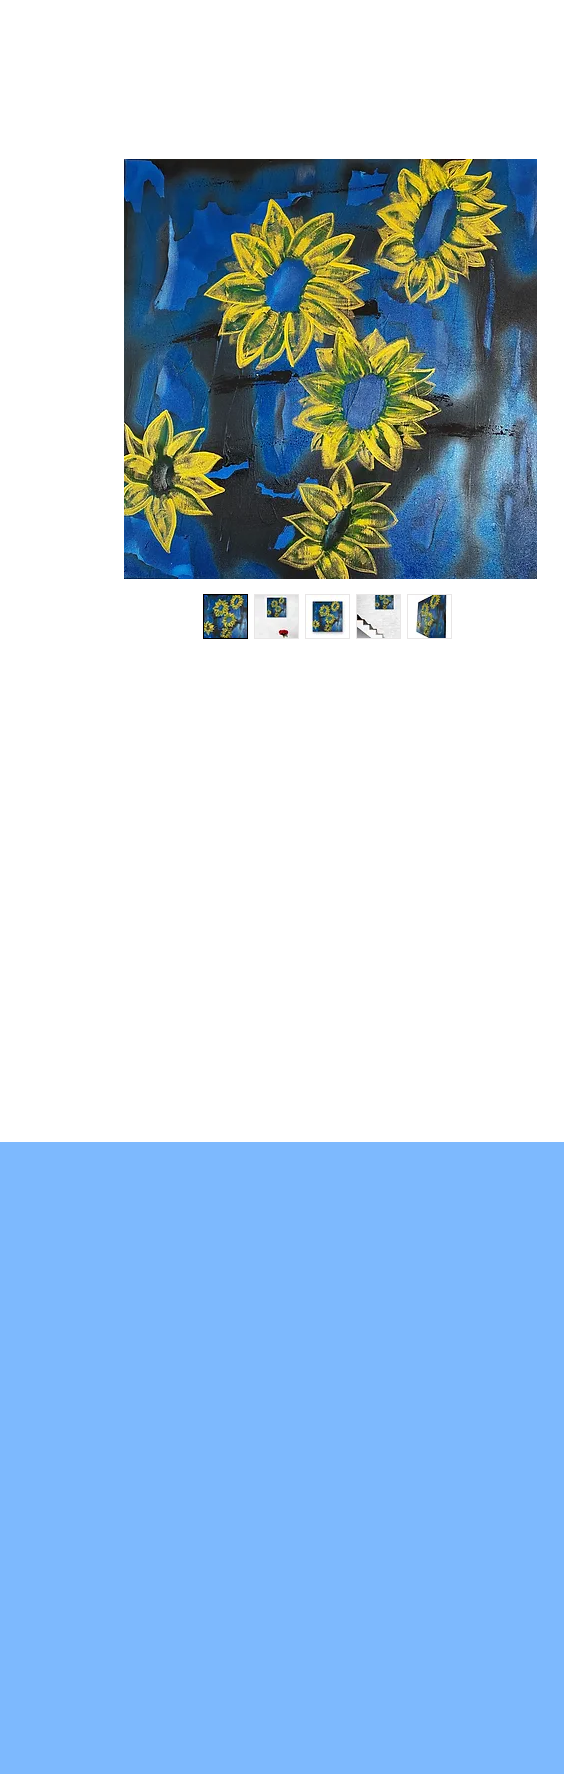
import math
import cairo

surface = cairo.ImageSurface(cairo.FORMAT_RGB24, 564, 1774)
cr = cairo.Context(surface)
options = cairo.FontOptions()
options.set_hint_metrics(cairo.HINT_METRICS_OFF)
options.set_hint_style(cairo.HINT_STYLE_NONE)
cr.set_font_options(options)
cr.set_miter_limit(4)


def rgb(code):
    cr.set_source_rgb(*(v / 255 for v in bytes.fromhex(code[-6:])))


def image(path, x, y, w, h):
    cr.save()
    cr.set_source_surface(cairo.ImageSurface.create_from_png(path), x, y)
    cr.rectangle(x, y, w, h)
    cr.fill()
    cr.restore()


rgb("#7db9fe")
cr.paint()
rgb("#ffffff")
cr.rectangle(0, 0, 564, 1142)
cr.fill()
image("img/1.png", 124, 159, 413, 420)
cr.rectangle(203.5, 594.5, 44, 44)
rgb("#000000")
cr.set_line_width(1)
cr.stroke()
image("img/2.png", 204, 595, 43, 43)
cr.rectangle(254.5, 594.5, 44, 44)
rgb("#e8e6e6")
cr.stroke()
image("img/3.png", 255, 595, 43, 43)
cr.rectangle(305.5, 594.5, 44, 44)
cr.stroke()
image("img/4.png", 306, 595, 40, 41)
cr.rectangle(356.5, 594.5, 44, 44)
cr.stroke()
image("img/5.png", 357, 595, 43, 43)
cr.rectangle(407.5, 594.5, 44, 44)
cr.stroke()
image("img/6.png", 415, 595, 33, 43)
surface.write_to_png("page.png")
